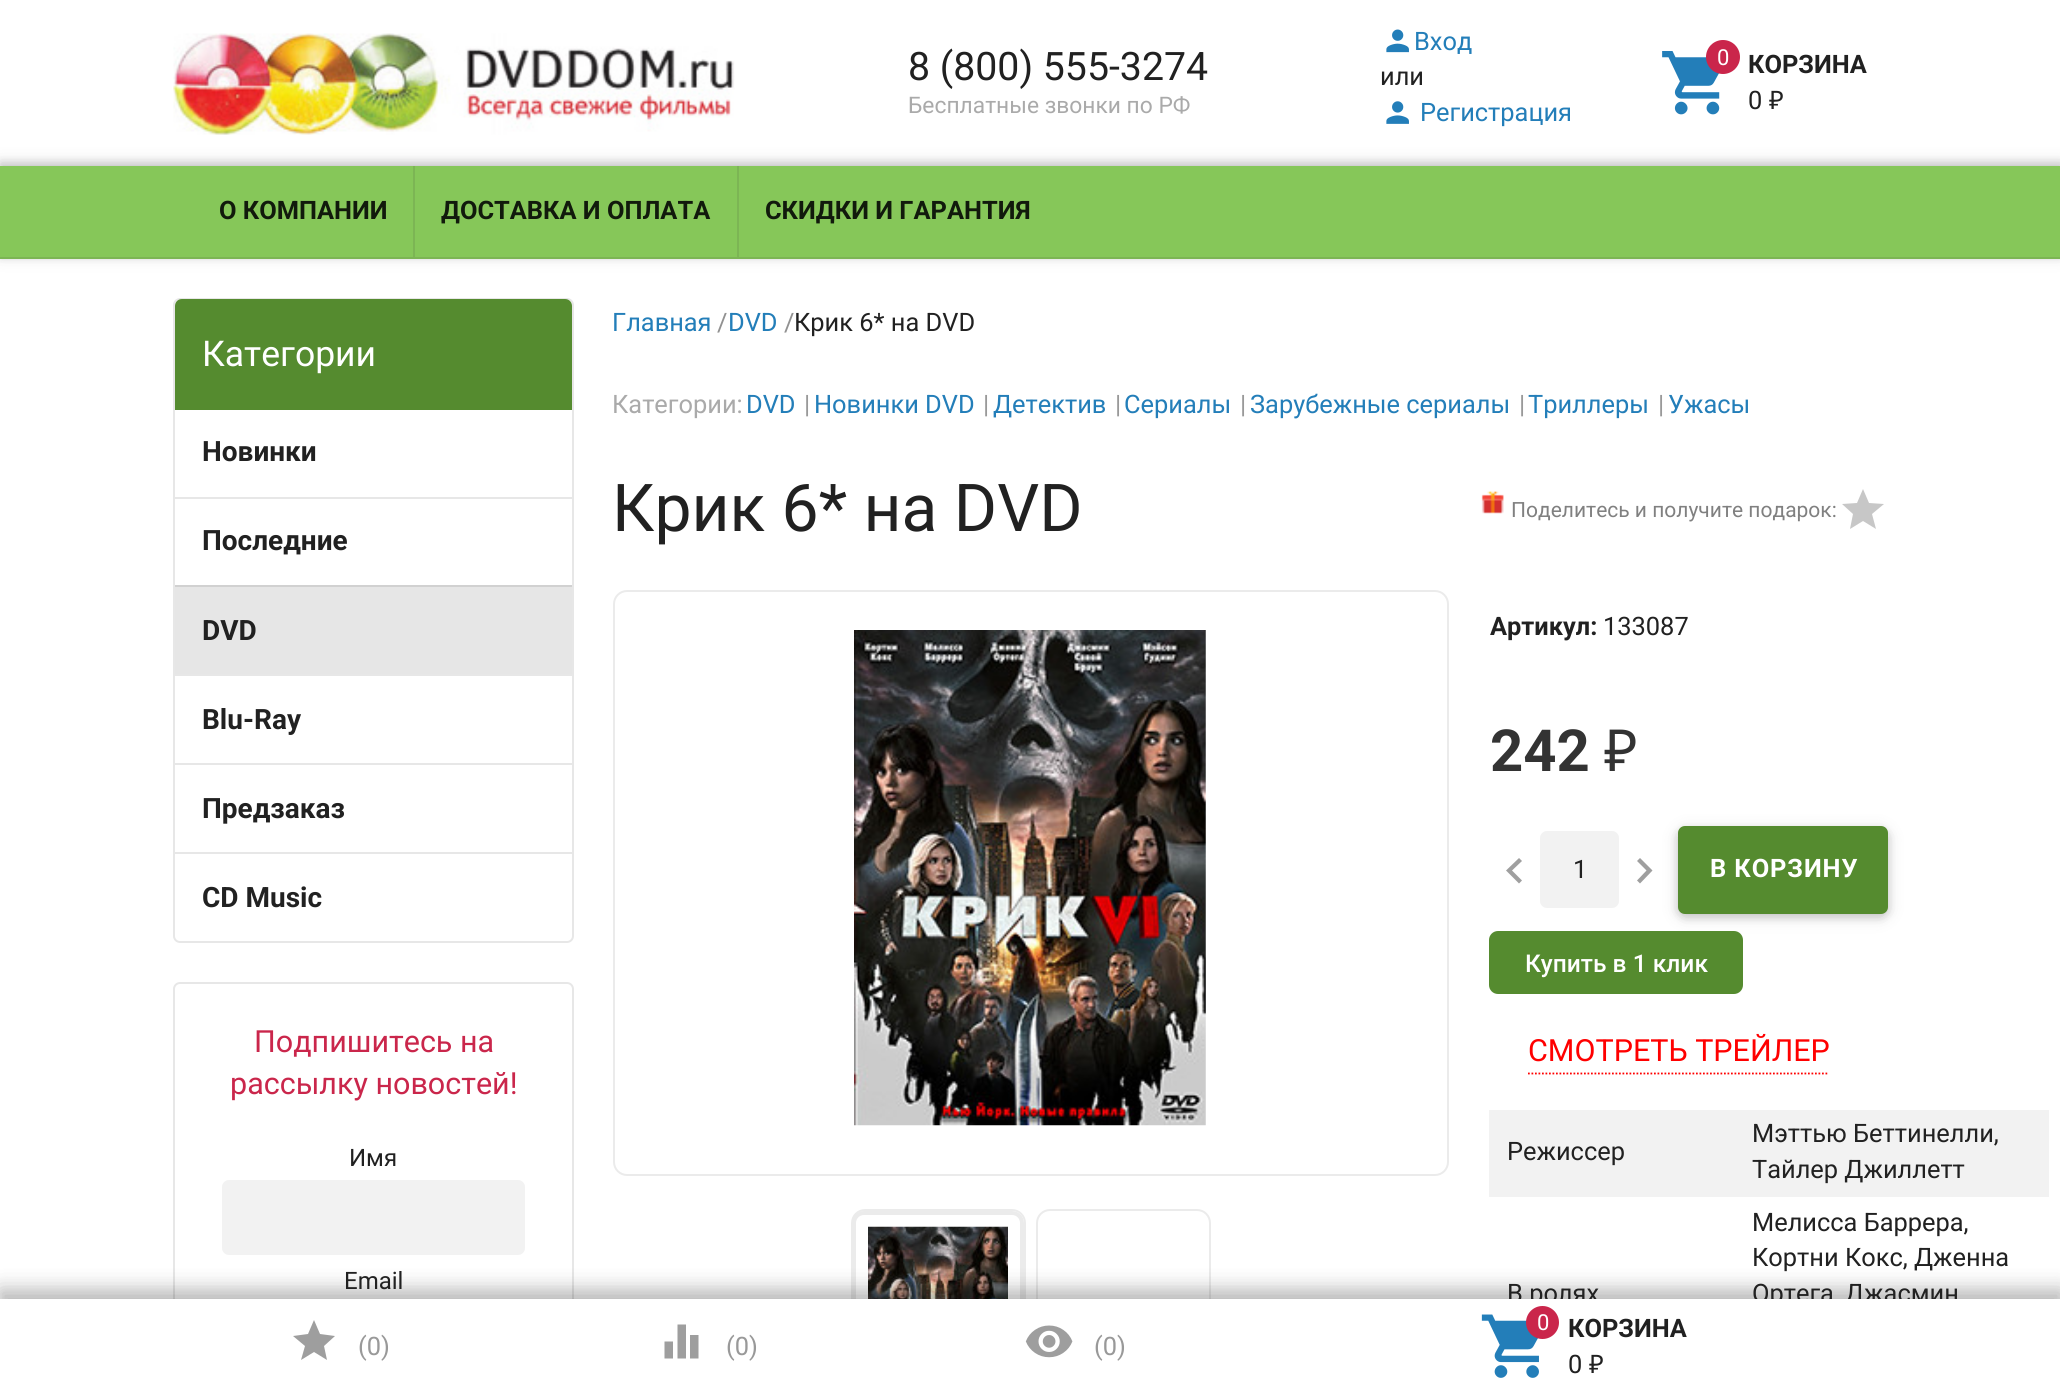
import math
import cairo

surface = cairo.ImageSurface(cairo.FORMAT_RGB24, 2060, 1396)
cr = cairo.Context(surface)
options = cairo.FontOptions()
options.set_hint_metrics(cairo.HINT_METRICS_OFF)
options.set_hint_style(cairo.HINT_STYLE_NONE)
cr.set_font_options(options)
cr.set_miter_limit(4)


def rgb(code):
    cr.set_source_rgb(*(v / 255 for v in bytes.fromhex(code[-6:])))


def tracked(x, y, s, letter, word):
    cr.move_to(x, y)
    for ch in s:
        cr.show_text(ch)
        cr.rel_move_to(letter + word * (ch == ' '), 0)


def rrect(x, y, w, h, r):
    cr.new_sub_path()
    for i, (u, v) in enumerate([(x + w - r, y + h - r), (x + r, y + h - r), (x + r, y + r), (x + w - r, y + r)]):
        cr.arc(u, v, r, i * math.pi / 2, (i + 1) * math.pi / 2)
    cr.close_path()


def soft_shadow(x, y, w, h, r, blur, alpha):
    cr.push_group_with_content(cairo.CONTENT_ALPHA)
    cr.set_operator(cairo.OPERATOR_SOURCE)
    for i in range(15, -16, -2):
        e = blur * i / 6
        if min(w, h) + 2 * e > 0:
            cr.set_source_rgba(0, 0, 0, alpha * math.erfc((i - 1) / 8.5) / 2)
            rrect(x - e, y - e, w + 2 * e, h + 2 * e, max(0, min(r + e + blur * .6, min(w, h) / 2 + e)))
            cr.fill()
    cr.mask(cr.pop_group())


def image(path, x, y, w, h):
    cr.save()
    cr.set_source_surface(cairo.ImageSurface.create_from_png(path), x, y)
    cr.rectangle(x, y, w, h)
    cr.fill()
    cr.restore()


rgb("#ffffff")
cr.paint()
image("img/1.png", 173, 33, 562, 102)
image("img/2.png", 1386, 29, 23, 24)
image("img/3.png", 1386, 101, 23, 23)
image("img/4.png", 1662, 51, 58, 64)
rgb("#ca264b")
cr.arc(1723, 57, 17, 0, 2 * math.pi)
cr.fill()
rgb("#000000")
soft_shadow(0, 163, 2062, 93, 0, 9, 0.12)
soft_shadow(0, 163, 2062, 93, 0, 4.5, 0.16)
for x, y, w, h, color in [
    (0, 166, 2060, 91, "#86c759"),
    (0, 257, 2060, 2, "#7cb554"),
    (413, 166, 2, 91, "#7cb554"),
    (737, 166, 2, 91, "#7cb554"),
]:
    rgb(color)
    cr.rectangle(x, y, w, h)
    cr.fill()
rrect(174, 299, 399, 643, 6)
rgb("#e7e7e7")
cr.stroke()
rgb("#558b2f")
cr.new_path()
cr.move_to(182, 299)
cr.line_to(565, 299)
cr.curve_to(569, 299, 572, 302, 572, 306)
cr.line_to(572, 410)
cr.line_to(175, 410)
cr.line_to(175, 306)
cr.curve_to(175, 302, 178, 299, 182, 299)
cr.close_path()
cr.fill()
for x, y, w, h, color in [
    (175, 497, 397, 2, "#e7e7e7"),
    (175, 587, 397, 87, "#e6e6e6"),
    (175, 585, 397, 2, "#d1d1d1"),
    (175, 674, 397, 2, "#e7e7e7"),
    (175, 763, 397, 2, "#e7e7e7"),
    (175, 852, 397, 2, "#e7e7e7"),
]:
    rgb(color)
    cr.rectangle(x, y, w, h)
    cr.fill()
rrect(174, 983, 399, 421, 6)
cr.stroke()
rgb("#f2f2f2")
rrect(222, 1180, 303, 75, 7)
cr.fill()
image("img/5.png", 1481, 491, 23, 23)
rgb("#c7c7c7")
cr.new_path()
cr.move_to(1863, 521)
cr.line_to(1850, 529)
cr.line_to(1853, 514)
cr.line_to(1842, 504)
cr.line_to(1857, 503)
cr.line_to(1863, 489)
cr.line_to(1869, 503)
cr.line_to(1884, 504)
cr.line_to(1872, 514)
cr.line_to(1876, 529)
cr.close_path()
cr.fill()
rrect(614, 591, 834, 584, 13)
rgb("#ebebeb")
cr.stroke()
image("img/6.png", 854, 630, 352, 496)
rrect(854, 1213, 168, 168, 10)
cr.set_line_width(4)
cr.stroke()
rrect(852, 1210, 173, 173, 13)
cr.set_line_width(2)
cr.stroke()
image("img/7.png", 868, 1226, 140, 73)
rrect(1037, 1210, 173, 173, 13)
cr.stroke()
rgb("#9f9f9f")
cr.new_path()
cr.move_to(1522, 861)
cr.line_to(1512, 870.5)
cr.line_to(1522, 880.5)
cr.line_to(1519, 883.5)
cr.line_to(1506, 870.5)
cr.line_to(1519, 858)
cr.close_path()
cr.fill()
rgb("#f2f2f2")
rrect(1540, 831, 79, 77, 7)
cr.fill()
rgb("#9f9f9f")
cr.new_path()
cr.move_to(1640, 858)
cr.line_to(1652.5, 870.5)
cr.line_to(1640, 883.5)
cr.line_to(1637, 880.5)
cr.line_to(1646.5, 870.5)
cr.line_to(1637, 861)
cr.close_path()
cr.fill()
rgb("#000000")
soft_shadow(1678, 830, 210, 87, 7, 9, 0.12)
soft_shadow(1678, 830, 210, 87, 7, 4.5, 0.16)
rgb("#558b2f")
rrect(1678, 826, 210, 88, 7)
cr.fill()
rrect(1489, 931, 254, 63, 9)
cr.fill()
cr.new_path()
cr.move_to(1528, 1073.5)
cr.line_to(1829, 1073.5)
rgb("#ff0000")
cr.set_line_width(1.8)
cr.set_dash([1.75, 1.75])
cr.stroke()
rgb("#f2f2f2")
cr.rectangle(1489, 1110, 560, 87)
cr.fill()
rgb("#000000")
soft_shadow(0, 1292, 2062, 98, 0, 13, 0.15)
soft_shadow(0, 1290, 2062, 98, 0, 9.5, 0.18)
cr.select_font_face("Roboto")
cr.set_font_size(39.25)
rgb("#212121")
cr.move_to(908, 80)
cr.show_text("8 (800) 555-3274")
cr.set_font_size(22.8)
rgb("#aaaaaa")
cr.move_to(908, 113)
cr.show_text("Бесплатные звонки по РФ")
cr.set_font_size(25.4)
rgb("#237eb9")
cr.move_to(1414, 50)
cr.show_text("Вход")
rgb("#212121")
cr.move_to(1380, 85)
cr.show_text("или")
rgb("#237eb9")
cr.move_to(1420, 121)
cr.show_text("Регистрация")
cr.set_font_size(22)
rgb("#ffffff")
cr.move_to(1717, 65)
cr.show_text("0")
cr.select_font_face("Roboto", cairo.FONT_SLANT_NORMAL, cairo.FONT_WEIGHT_BOLD)
cr.set_font_size(25.4)
rgb("#212121")
cr.move_to(1748, 73)
cr.show_text("КОРЗИНА")
cr.select_font_face("Roboto")
cr.move_to(1748, 109)
cr.show_text("0")
cr.select_font_face("Noto Sans")
cr.move_to(1769, 109)
cr.show_text("₽")
cr.select_font_face("Roboto", cairo.FONT_SLANT_NORMAL, cairo.FONT_WEIGHT_BOLD)
rgb("#111a0c")
for x, y, s in [
    (219, 219, "О КОМПАНИИ"),
    (441, 219, "ДОСТАВКА И ОПЛАТА"),
    (765, 219, "СКИДКИ И ГАРАНТИЯ"),
]:
    cr.move_to(x, y)
    cr.show_text(s)
cr.select_font_face("Roboto")
cr.set_font_size(35.5)
rgb("#ffffff")
cr.move_to(202, 366)
cr.show_text("Категории")
cr.select_font_face("Roboto", cairo.FONT_SLANT_NORMAL, cairo.FONT_WEIGHT_BOLD)
cr.set_font_size(28)
rgb("#212121")
for x, y, s in [
    (202, 461, "Новинки"),
    (202, 550, "Последние"),
    (202, 640, "DVD"),
    (202, 729, "Blu-Ray"),
    (202, 818, "Предзаказ"),
    (202, 907, "CD Music"),
]:
    cr.move_to(x, y)
    cr.show_text(s)
cr.select_font_face("Roboto")
cr.set_font_size(30.5)
rgb("#ca264b")
cr.move_to(254, 1052)
cr.show_text("Подпишитесь на")
cr.move_to(230, 1094)
cr.show_text("рассылку новостей!")
cr.set_font_size(24)
rgb("#212121")
cr.move_to(349, 1166)
cr.show_text("Имя")
cr.move_to(344, 1289)
cr.show_text("Email")
cr.set_font_size(25.4)
rgb("#237eb9")
cr.move_to(612, 331)
cr.show_text("Главная")
rgb("#919191")
cr.move_to(717, 331)
cr.show_text("/")
rgb("#237eb9")
cr.move_to(728, 331)
cr.show_text("DVD")
rgb("#919191")
cr.move_to(784, 331)
cr.show_text("/")
rgb("#212121")
cr.move_to(794, 331)
cr.show_text("Крик 6* на DVD")
rgb("#aaaaaa")
cr.move_to(612, 413)
cr.show_text("Категории:")
rgb("#237eb9")
cr.move_to(746, 413)
cr.show_text("DVD")
rgb("#999999")
cr.move_to(804, 413)
cr.show_text("|")
rgb("#237eb9")
cr.move_to(814, 413)
cr.show_text("Новинки DVD")
rgb("#999999")
cr.move_to(983, 413)
cr.show_text("|")
rgb("#237eb9")
cr.move_to(993, 413)
cr.show_text("Детектив")
rgb("#999999")
cr.move_to(1115, 413)
cr.show_text("|")
rgb("#237eb9")
cr.move_to(1124, 413)
cr.show_text("Сериалы")
rgb("#999999")
cr.move_to(1240, 413)
cr.show_text("|")
rgb("#237eb9")
cr.move_to(1250, 413)
cr.show_text("Зарубежные сериалы")
rgb("#999999")
cr.move_to(1519, 413)
cr.show_text("|")
rgb("#237eb9")
cr.move_to(1528, 413)
cr.show_text("Триллеры")
rgb("#999999")
cr.move_to(1658, 413)
cr.show_text("|")
rgb("#237eb9")
cr.move_to(1668, 413)
cr.show_text("Ужасы")
cr.set_font_size(66)
rgb("#212121")
cr.move_to(612, 531)
cr.show_text("Крик 6* на DVD")
cr.set_font_size(21)
rgb("#808080")
cr.move_to(1511, 517)
cr.show_text("Поделитесь и получите подарок:")
cr.select_font_face("Roboto", cairo.FONT_SLANT_NORMAL, cairo.FONT_WEIGHT_BOLD)
cr.set_font_size(25.4)
rgb("#212121")
cr.move_to(1490, 635)
cr.show_text("Артикул:")
cr.select_font_face("Roboto")
cr.move_to(1603, 635)
cr.show_text("133087")
cr.select_font_face("Roboto", cairo.FONT_SLANT_NORMAL, cairo.FONT_WEIGHT_BOLD)
cr.set_font_size(58)
rgb("#333333")
cr.move_to(1490, 771)
cr.show_text("242")
cr.select_font_face("Noto Sans")
cr.move_to(1604, 771)
cr.show_text("₽")
cr.select_font_face("Roboto")
cr.set_font_size(25.4)
rgb("#212121")
cr.move_to(1573, 878)
cr.show_text("1")
cr.select_font_face("Roboto", cairo.FONT_SLANT_NORMAL, cairo.FONT_WEIGHT_BOLD)
rgb("#ffffff")
tracked(1710, 877, "В КОРЗИНУ", 0.9, 0)
cr.select_font_face("Roboto Medium")
cr.set_font_size(24.5)
cr.move_to(1525, 972)
cr.show_text("Купить в 1 клик")
cr.select_font_face("Roboto")
cr.set_font_size(30.5)
rgb("#ff0000")
cr.move_to(1528, 1061)
cr.show_text("СМОТРЕТЬ ТРЕЙЛЕР")
cr.set_font_size(25.4)
rgb("#212121")
for x, y, s in [
    (1507, 1160, "Режиссер"),
    (1752, 1142, "Мэттью Беттинелли,"),
    (1752, 1178, "Тайлер Джиллетт"),
    (1507, 1302, "В ролях"),
    (1752, 1231, "Мелисса Баррера,"),
    (1752, 1266, "Кортни Кокс, Дженна"),
    (1752, 1302, "Ортега"),
    (1845, 1302, "Джасмин"),
]:
    cr.move_to(x, y)
    cr.show_text(s)
rgb("#ffffff")
cr.rectangle(0, 1299, 2060, 97)
cr.fill()
rgb("#9e9e9e")
cr.new_path()
cr.move_to(314, 1352)
cr.line_to(301, 1360)
cr.line_to(305, 1346)
cr.line_to(293, 1336)
cr.line_to(308, 1334)
cr.line_to(314, 1320)
cr.line_to(320, 1334)
cr.line_to(335, 1336)
cr.line_to(324, 1346)
cr.line_to(327, 1360)
cr.close_path()
cr.fill()
rgb("#999999")
cr.move_to(358, 1355)
cr.show_text("(0)")
rgb("#9e9e9e")
cr.new_path()
cr.move_to(690, 1335)
cr.line_to(698.5, 1335)
cr.line_to(698.5, 1358.5)
cr.line_to(690, 1358.5)
cr.close_path()
cr.move_to(664.5, 1358.5)
cr.line_to(664.5, 1341.5)
cr.line_to(673, 1341.5)
cr.line_to(673, 1358.5)
cr.close_path()
cr.move_to(677.5, 1358.5)
cr.line_to(677.5, 1324.5)
cr.line_to(686, 1324.5)
cr.line_to(686, 1358.5)
cr.close_path()
cr.fill()
rgb("#999999")
cr.move_to(726, 1355)
cr.show_text("(0)")
image("img/8.png", 1025, 1325, 48, 33)
cr.move_to(1094, 1355)
cr.show_text("(0)")
image("img/9.png", 1481, 1314, 58, 64)
rgb("#ca264b")
cr.arc(1542.5, 1322.5, 16.5, 0, 2 * math.pi)
cr.fill()
cr.set_font_size(22)
rgb("#ffffff")
cr.move_to(1537, 1330)
cr.show_text("0")
cr.select_font_face("Roboto", cairo.FONT_SLANT_NORMAL, cairo.FONT_WEIGHT_BOLD)
cr.set_font_size(25.4)
rgb("#212121")
cr.move_to(1568, 1337)
cr.show_text("КОРЗИНА")
cr.select_font_face("Roboto")
cr.move_to(1568, 1373)
cr.show_text("0")
cr.select_font_face("Noto Sans")
cr.move_to(1589, 1373)
cr.show_text("₽")
surface.write_to_png("page.png")
